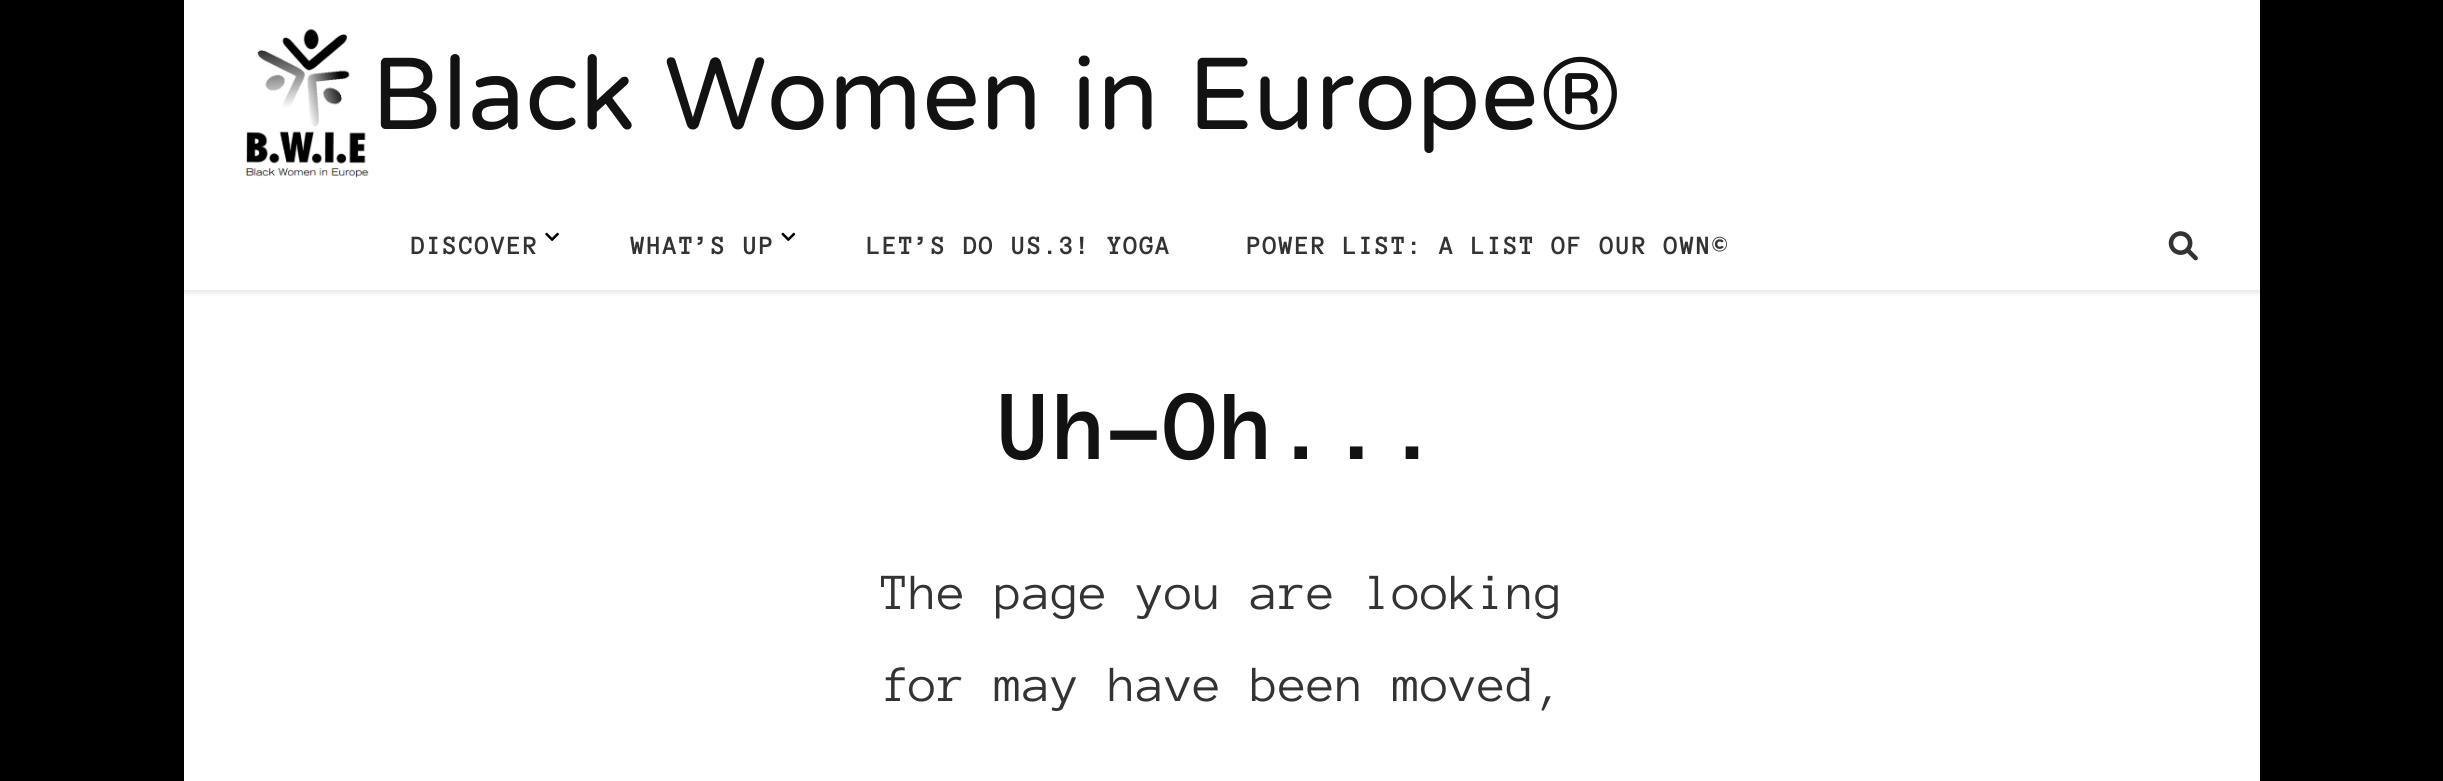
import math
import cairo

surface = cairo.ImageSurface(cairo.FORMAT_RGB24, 2443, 781)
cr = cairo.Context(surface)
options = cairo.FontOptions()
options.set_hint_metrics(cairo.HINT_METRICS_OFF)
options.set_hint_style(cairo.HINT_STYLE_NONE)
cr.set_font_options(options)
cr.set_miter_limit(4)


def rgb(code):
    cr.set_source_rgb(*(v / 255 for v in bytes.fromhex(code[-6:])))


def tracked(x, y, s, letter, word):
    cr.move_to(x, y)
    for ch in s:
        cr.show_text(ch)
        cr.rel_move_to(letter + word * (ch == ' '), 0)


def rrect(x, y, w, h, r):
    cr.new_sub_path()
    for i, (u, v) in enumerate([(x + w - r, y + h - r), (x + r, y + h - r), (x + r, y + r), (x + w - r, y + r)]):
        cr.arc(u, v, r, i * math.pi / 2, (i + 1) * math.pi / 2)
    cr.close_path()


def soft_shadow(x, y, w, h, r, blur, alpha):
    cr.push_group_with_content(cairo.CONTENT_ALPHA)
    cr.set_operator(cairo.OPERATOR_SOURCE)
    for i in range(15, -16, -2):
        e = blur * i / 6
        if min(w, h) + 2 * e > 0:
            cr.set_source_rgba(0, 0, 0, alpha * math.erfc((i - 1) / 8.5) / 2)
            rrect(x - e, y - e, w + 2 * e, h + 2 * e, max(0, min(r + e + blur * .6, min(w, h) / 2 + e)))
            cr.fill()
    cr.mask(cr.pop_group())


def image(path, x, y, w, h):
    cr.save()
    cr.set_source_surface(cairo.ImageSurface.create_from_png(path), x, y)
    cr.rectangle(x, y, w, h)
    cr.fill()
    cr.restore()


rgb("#000000")
cr.paint()
rgb("#ffffff")
cr.rectangle(184, 0, 2076, 781)
cr.fill()
cr.save()
cr.set_fill_rule(cairo.FILL_RULE_EVEN_ODD)
cr.new_path()
cr.move_to(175, 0)
cr.line_to(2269, 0)
cr.line_to(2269, 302)
cr.line_to(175, 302)
cr.close_path()
cr.move_to(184, 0)
cr.line_to(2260, 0)
cr.line_to(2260, 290)
cr.line_to(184, 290)
cr.close_path()
cr.clip()
rgb("#000000")
soft_shadow(184, 3, 2076, 290, 0, 2.5, 0.1)
cr.restore()
image("img/1.png", 245, 28, 124, 150)
image("img/2.png", 545, 232, 14, 9)
image("img/3.png", 781, 232, 15, 9)
image("img/4.png", 2168, 231, 30, 30)
cr.select_font_face("NTR")
cr.set_font_size(127.5)
rgb("#121212")
cr.move_to(371, 129)
cr.show_text("Black Women in Europe®")
cr.select_font_face("Anonymous Pro", cairo.FONT_SLANT_NORMAL, cairo.FONT_WEIGHT_BOLD)
cr.set_font_size(27.1)
rgb("#333333")
for x, y, s in [
    (411, 254, "DISCOVER"),
    (631, 254, "WHAT’S UP"),
    (867, 254, "LET’S DO US.3! YOGA"),
    (1247, 254, "POWER LIST: A LIST OF OUR OWN©"),
]:
    tracked(x, y, s, 1.25, 0)
cr.set_font_size(102)
rgb("#121212")
cr.move_to(999, 459)
cr.show_text("Uh-Oh...")
cr.select_font_face("Anonymous Pro")
cr.set_font_size(52.1)
rgb("#333333")
cr.move_to(881, 609)
cr.show_text("The page you are looking")
cr.move_to(881, 701)
cr.show_text("for may have been moved,")
surface.write_to_png("page.png")
